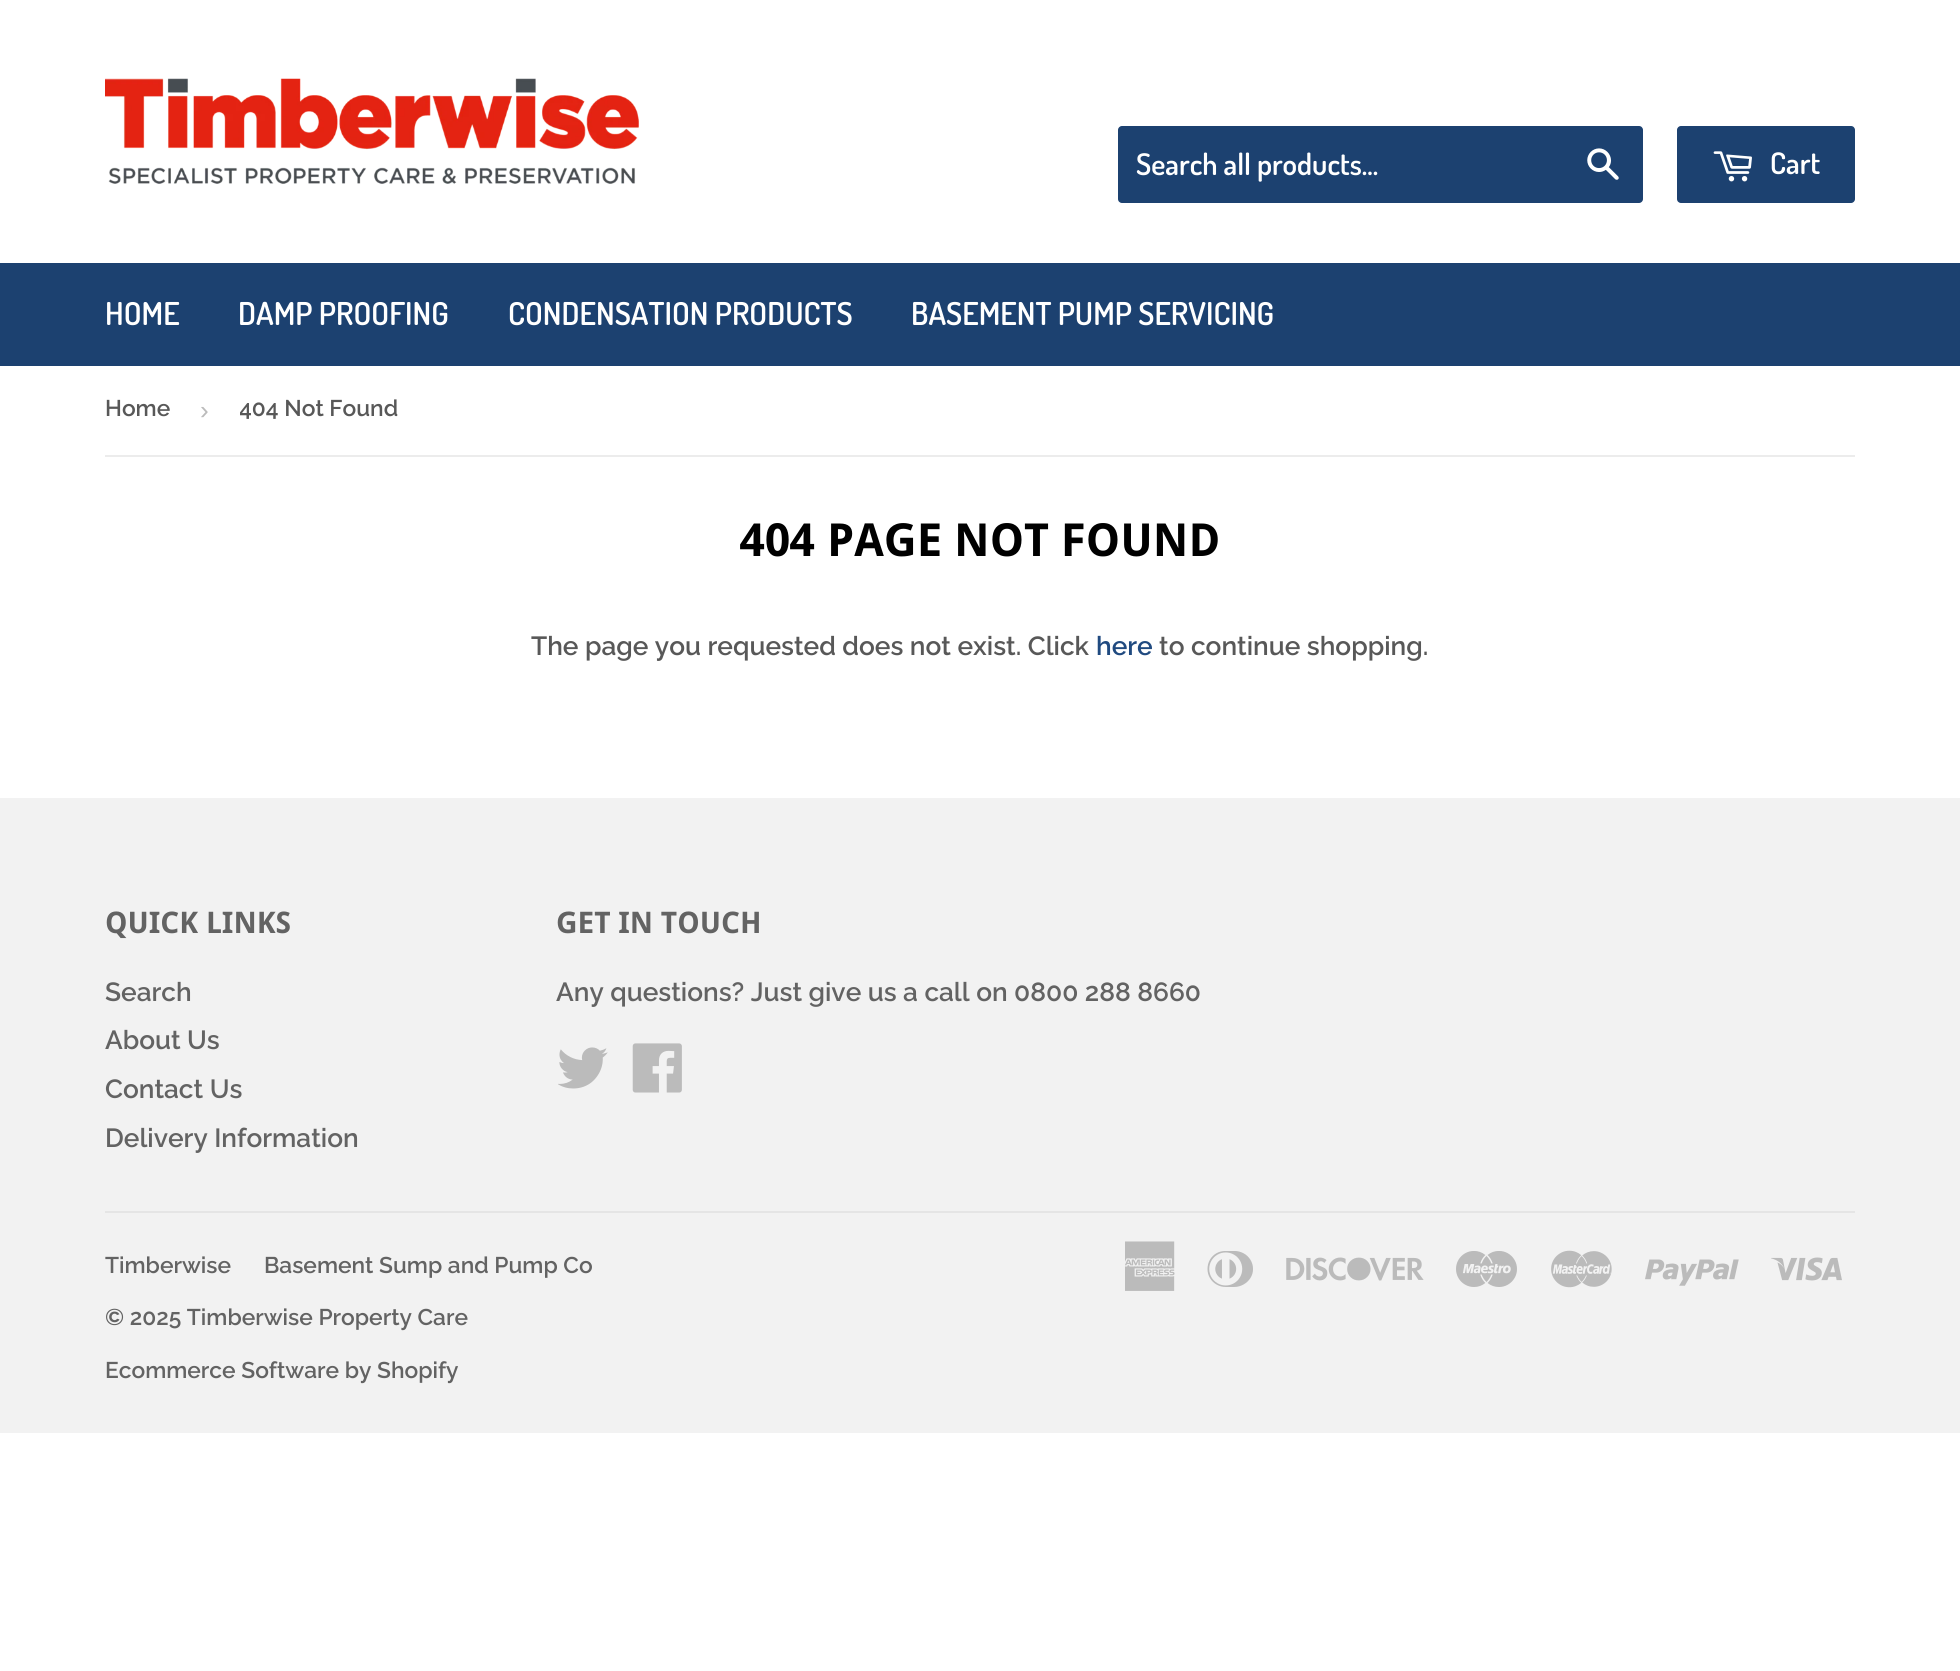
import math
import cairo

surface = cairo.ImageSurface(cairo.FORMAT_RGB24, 1960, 1671)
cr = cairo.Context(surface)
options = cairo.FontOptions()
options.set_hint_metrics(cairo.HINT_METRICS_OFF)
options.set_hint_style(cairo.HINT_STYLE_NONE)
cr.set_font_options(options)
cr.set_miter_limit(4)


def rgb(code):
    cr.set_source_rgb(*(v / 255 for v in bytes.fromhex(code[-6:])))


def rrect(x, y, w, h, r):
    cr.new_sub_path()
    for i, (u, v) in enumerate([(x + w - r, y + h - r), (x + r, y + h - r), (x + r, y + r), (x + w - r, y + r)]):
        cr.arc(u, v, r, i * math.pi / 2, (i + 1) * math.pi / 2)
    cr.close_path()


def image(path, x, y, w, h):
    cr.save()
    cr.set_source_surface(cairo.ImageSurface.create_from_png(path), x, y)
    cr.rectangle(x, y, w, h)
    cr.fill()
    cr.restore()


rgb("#ffffff")
cr.paint()
image("img/1.png", 105, 78, 534, 106)
rgb("#1c4170")
rrect(1118, 126, 525, 77, 4)
cr.fill()
image("img/2.png", 1587, 148, 32, 32)
rrect(1677, 126, 178, 77, 4)
cr.fill()
image("img/3.png", 1713, 151, 39, 31)
for x, y, w, h, color in [
    (0, 263, 1960, 103, "#1c4170"),
    (105, 455, 1750, 2, "#ececec"),
    (0, 798, 1960, 635, "#f2f2f2"),
]:
    rgb(color)
    cr.rectangle(x, y, w, h)
    cr.fill()
image("img/4.png", 558, 1047, 50, 42)
image("img/5.png", 632, 1043, 50, 50)
rgb("#e5e5e5")
cr.rectangle(105, 1211, 1750, 2)
cr.fill()
image("img/6.png", 1125, 1241, 50, 50)
image("img/7.png", 1207, 1251, 46, 36)
image("img/8.png", 1286, 1257, 138, 24)
image("img/9.png", 1456, 1251, 61, 36)
image("img/10.png", 1551, 1250, 61, 38)
image("img/11.png", 1645, 1259, 94, 27)
image("img/12.png", 1771, 1257, 71, 24)
cr.select_font_face("Dosis SemiBold")
cr.set_font_size(29.75)
rgb("#ffffff")
cr.move_to(1136, 175)
cr.show_text("Search all products...")
cr.move_to(1770, 174)
cr.show_text("Cart")
cr.set_font_size(31.5)
for x, y, s in [
    (105, 325, "HOME"),
    (238, 325, "DAMP PROOFING"),
    (508, 325, "CONDENSATION PRODUCTS"),
    (911, 325, "BASEMENT PUMP SERVICING"),
]:
    cr.move_to(x, y)
    cr.show_text(s)
cr.select_font_face("Raleway SemiBold")
cr.set_font_size(22.75)
rgb("#585858")
cr.move_to(105, 416)
cr.show_text("Home")
cr.select_font_face("Liberation Sans")
cr.set_font_size(26.25)
rgb("#bbbbbb")
cr.move_to(200, 419)
cr.show_text("›")
cr.save()
cr.rectangle(240, 366, 171, 89)
cr.clip()
cr.select_font_face("Raleway SemiBold")
cr.set_font_size(22.75)
rgb("#585858")
cr.move_to(239, 416)
cr.show_text("404 Not Found")
cr.restore()
cr.select_font_face("Droid Sans", cairo.FONT_SLANT_NORMAL, cairo.FONT_WEIGHT_BOLD)
cr.set_font_size(45.5)
rgb("#000000")
cr.move_to(740, 556)
cr.show_text("404 PAGE NOT FOUND")
cr.select_font_face("Raleway SemiBold")
cr.set_font_size(26.25)
rgb("#585858")
cr.move_to(531, 655)
cr.show_text("The page you requested does not exist. Click")
rgb("#204a80")
cr.move_to(1096, 655)
cr.show_text("here")
rgb("#585858")
cr.move_to(1159, 655)
cr.show_text("to continue shopping.")
cr.select_font_face("Droid Sans", cairo.FONT_SLANT_NORMAL, cairo.FONT_WEIGHT_BOLD)
cr.set_font_size(29.75)
rgb("#636363")
cr.move_to(105, 933)
cr.show_text("QUICK LINKS")
cr.select_font_face("Raleway SemiBold")
cr.set_font_size(26.25)
for x, y, s in [
    (105, 1001, "Search"),
    (105, 1049, "About Us"),
    (105, 1098, "Contact Us"),
    (105, 1147, "Delivery Information"),
]:
    cr.move_to(x, y)
    cr.show_text(s)
cr.select_font_face("Droid Sans", cairo.FONT_SLANT_NORMAL, cairo.FONT_WEIGHT_BOLD)
cr.set_font_size(29.75)
cr.move_to(556, 933)
cr.show_text("GET IN TOUCH")
cr.select_font_face("Raleway SemiBold")
cr.set_font_size(26.25)
cr.move_to(556, 1001)
cr.show_text("Any questions? Just give us a call on 0800 288 8660")
cr.set_font_size(22.75)
for x, y, s in [
    (105, 1273, "Timberwise"),
    (264, 1273, "Basement Sump and Pump Co"),
    (105, 1325, "© 2025 Timberwise Property Care"),
    (105, 1378, "Ecommerce Software by Shopify"),
]:
    cr.move_to(x, y)
    cr.show_text(s)
surface.write_to_png("page.png")
